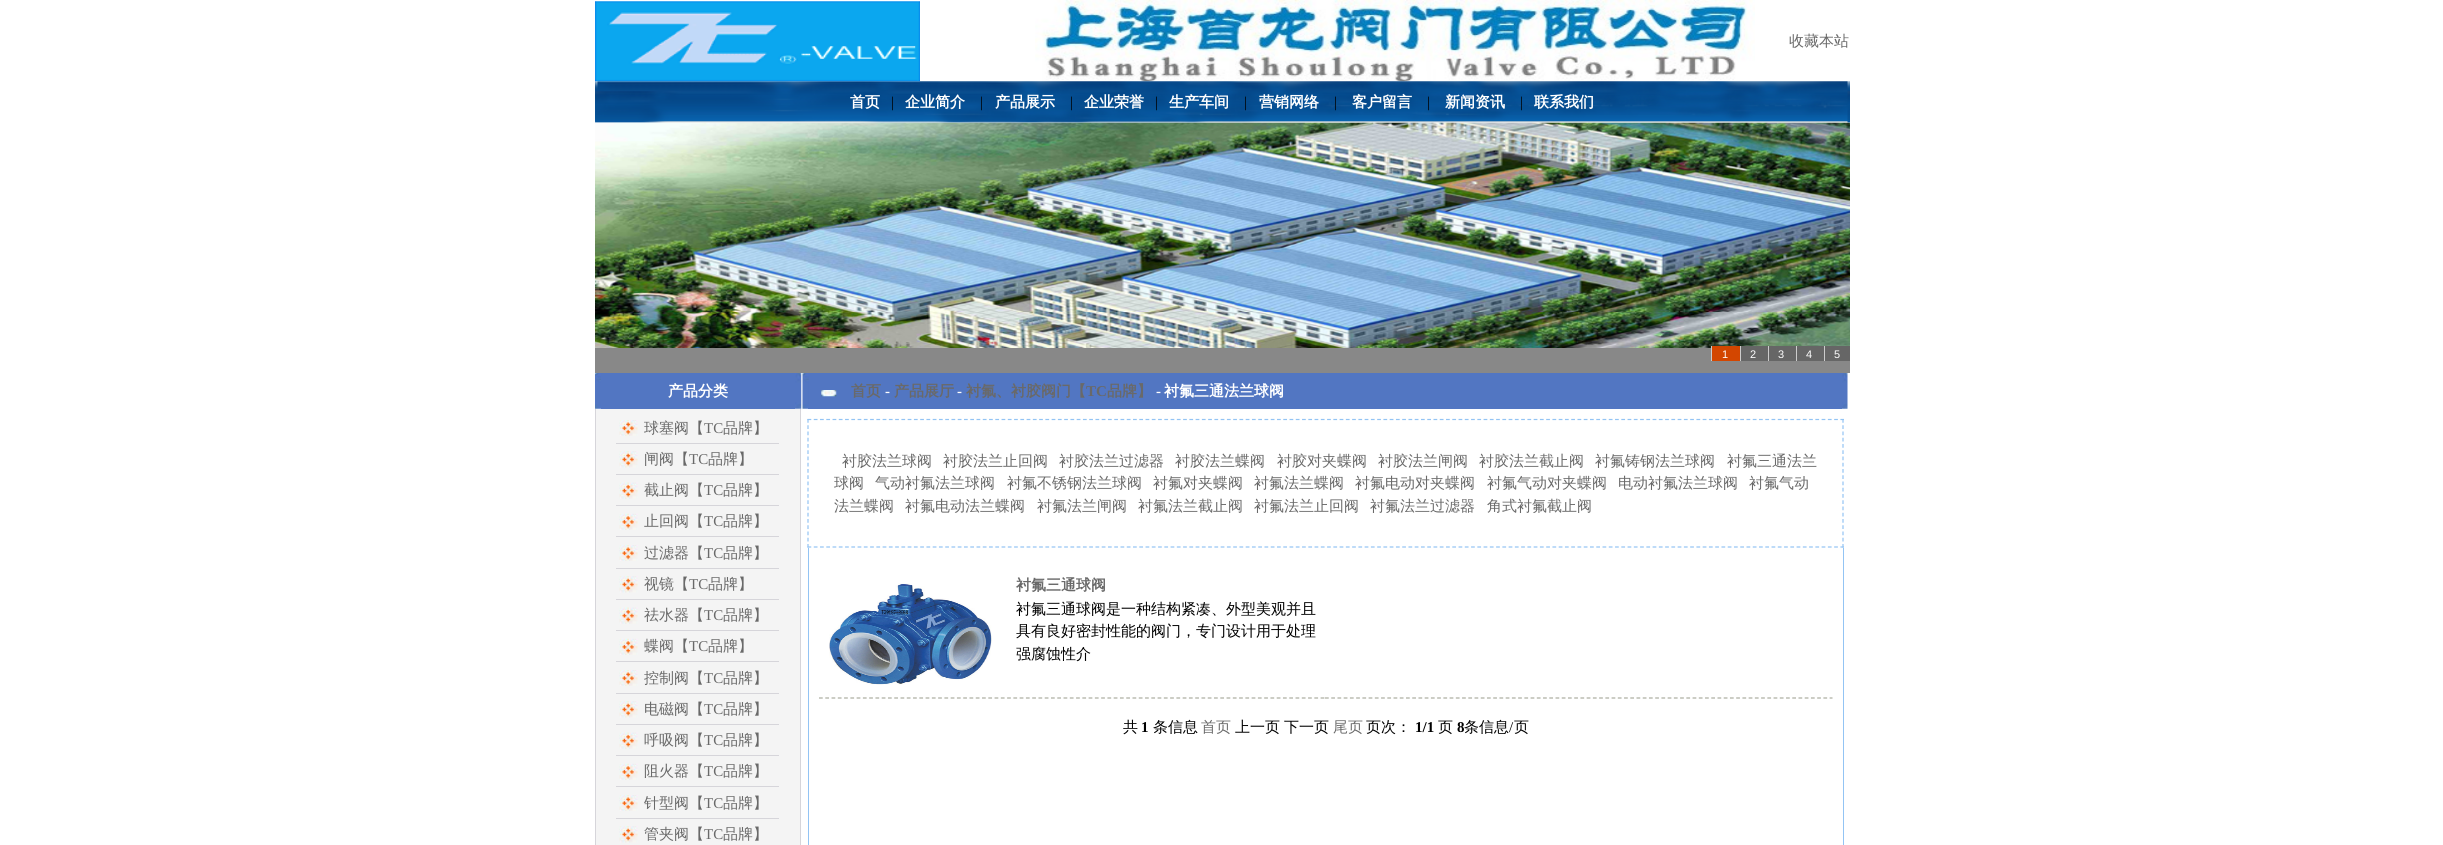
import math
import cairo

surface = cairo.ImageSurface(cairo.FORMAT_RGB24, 2443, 845)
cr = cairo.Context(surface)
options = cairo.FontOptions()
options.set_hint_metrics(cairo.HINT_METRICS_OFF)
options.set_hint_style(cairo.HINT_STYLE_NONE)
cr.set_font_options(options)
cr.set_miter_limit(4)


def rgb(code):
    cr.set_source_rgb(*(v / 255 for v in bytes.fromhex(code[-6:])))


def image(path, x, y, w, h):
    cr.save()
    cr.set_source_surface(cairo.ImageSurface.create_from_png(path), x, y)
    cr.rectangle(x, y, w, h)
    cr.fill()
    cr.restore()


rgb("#ffffff")
cr.paint()
image("img/1.png", 1035, 0, 720, 82)
image("img/3.png", 595, 81, 1255, 42)
image("img/2.png", 595, 1, 325, 81)
image("img/4.png", 595, 122, 1255, 226)
for x, y, w, h, color in [
    (595, 348, 1255, 25, "#888888"),
    (1712, 346, 28, 15, "#d34600"),
    (1711, 346, 1, 15, "#cccccc"),
    (1741, 346, 27, 15, "#666666"),
    (1740, 346, 1, 15, "#cccccc"),
    (1769, 346, 27, 15, "#666666"),
    (1768, 346, 1, 15, "#cccccc"),
    (1797, 346, 27, 15, "#666666"),
    (1796, 346, 1, 15, "#cccccc"),
    (1825, 346, 25, 15, "#666666"),
    (1824, 346, 1, 15, "#cccccc"),
]:
    rgb(color)
    cr.rectangle(x, y, w, h)
    cr.fill()
image("img/5.png", 595, 373, 6, 36)
rgb("#5276c2")
cr.rectangle(601, 373, 194, 36)
cr.fill()
image("img/6.png", 795, 373, 7, 36)
for x, y, w, h, color in [
    (596, 409, 204, 436, "#f4f4f4"),
    (800, 409, 1, 436, "#d6d5da"),
    (595, 409, 1, 436, "#d6d5da"),
    (616, 443, 163, 1, "#d6d5da"),
]:
    rgb(color)
    cr.rectangle(x, y, w, h)
    cr.fill()
image("img/7.png", 619, 420, 19, 16)
cr.rectangle(616, 474, 163, 1)
cr.fill()
image("img/8.png", 619, 451, 19, 17)
cr.rectangle(616, 505, 163, 1)
cr.fill()
image("img/9.png", 619, 482, 19, 17)
cr.rectangle(616, 536, 163, 1)
cr.fill()
image("img/10.png", 619, 513, 19, 17)
cr.rectangle(616, 568, 163, 1)
cr.fill()
image("img/7.png", 619, 545, 19, 16)
cr.rectangle(616, 599, 163, 1)
cr.fill()
image("img/8.png", 619, 576, 19, 17)
cr.rectangle(616, 630, 163, 1)
cr.fill()
image("img/9.png", 619, 607, 19, 17)
cr.rectangle(616, 661, 163, 1)
cr.fill()
image("img/10.png", 619, 638, 19, 17)
cr.rectangle(616, 693, 163, 1)
cr.fill()
image("img/7.png", 619, 670, 19, 16)
cr.rectangle(616, 724, 163, 1)
cr.fill()
image("img/8.png", 619, 701, 19, 17)
cr.rectangle(616, 755, 163, 1)
cr.fill()
image("img/9.png", 619, 732, 19, 17)
cr.rectangle(616, 786, 163, 1)
cr.fill()
image("img/10.png", 619, 763, 19, 17)
cr.rectangle(616, 818, 163, 1)
cr.fill()
image("img/7.png", 619, 795, 19, 16)
image("img/8.png", 619, 826, 19, 17)
rgb("#5276c2")
cr.rectangle(808, 373, 1034, 36)
cr.fill()
image("img/11.png", 802, 373, 7, 36)
image("img/12.png", 821, 390, 16, 7)
image("img/13.png", 1842, 373, 6, 36)
cr.new_path()
cr.move_to(807.5, 419.5)
cr.line_to(1844, 419.5)
rgb("#93c4f4")
cr.set_line_width(1.2)
cr.set_dash([3.75, 2.51])
cr.stroke()
cr.new_path()
cr.move_to(1843, 419)
cr.line_to(1843, 547.5)
cr.set_dash([3.75, 2.5])
cr.stroke()
cr.new_path()
cr.move_to(807.5, 547)
cr.line_to(1844, 547)
cr.set_dash([3.75, 2.51])
cr.stroke()
cr.new_path()
cr.move_to(808, 419)
cr.line_to(808, 547.5)
cr.set_dash([3.75, 2.5])
cr.stroke()
cr.rectangle(1843, 548, 1, 297)
cr.fill()
cr.rectangle(808, 548, 1, 297)
cr.fill()
cr.new_path()
cr.move_to(819, 698)
cr.line_to(1325, 698)
rgb("#aaac9f")
cr.set_dash([3.75, 2.52])
cr.stroke()
image("img/14.png", 829, 583, 163, 102)
cr.new_path()
cr.move_to(1325, 698)
cr.line_to(1832.5, 698)
cr.set_dash([3.75, 2.48])
cr.stroke()
cr.select_font_face("WenQuanYi Zen Hei Medium")
cr.set_font_size(15)
rgb("#696969")
cr.move_to(1789, 46)
cr.show_text("收藏本站")
cr.select_font_face("WenQuanYi Zen Hei", cairo.FONT_SLANT_NORMAL, cairo.FONT_WEIGHT_BOLD)
rgb("#ffffff")
cr.move_to(850, 107)
cr.show_text("首页")
cr.select_font_face("Liberation Serif")
rgb("#000000")
cr.move_to(891, 107)
cr.show_text("|")
cr.select_font_face("WenQuanYi Zen Hei", cairo.FONT_SLANT_NORMAL, cairo.FONT_WEIGHT_BOLD)
rgb("#ffffff")
cr.move_to(905, 107)
cr.show_text("企业简介")
cr.select_font_face("Liberation Serif")
rgb("#000000")
cr.move_to(980, 107)
cr.show_text("|")
cr.select_font_face("WenQuanYi Zen Hei", cairo.FONT_SLANT_NORMAL, cairo.FONT_WEIGHT_BOLD)
rgb("#ffffff")
cr.move_to(995, 107)
cr.show_text("产品展示")
cr.select_font_face("Liberation Serif")
rgb("#000000")
cr.move_to(1070, 107)
cr.show_text("|")
cr.select_font_face("WenQuanYi Zen Hei", cairo.FONT_SLANT_NORMAL, cairo.FONT_WEIGHT_BOLD)
rgb("#ffffff")
cr.move_to(1084, 107)
cr.show_text("企业荣誉")
cr.select_font_face("Liberation Serif")
rgb("#000000")
cr.move_to(1155, 107)
cr.show_text("|")
cr.select_font_face("WenQuanYi Zen Hei", cairo.FONT_SLANT_NORMAL, cairo.FONT_WEIGHT_BOLD)
rgb("#ffffff")
cr.move_to(1169, 107)
cr.show_text("生产车间")
cr.select_font_face("Liberation Serif")
rgb("#000000")
cr.move_to(1244, 107)
cr.show_text("|")
cr.select_font_face("WenQuanYi Zen Hei", cairo.FONT_SLANT_NORMAL, cairo.FONT_WEIGHT_BOLD)
rgb("#ffffff")
cr.move_to(1259, 107)
cr.show_text("营销网络")
cr.select_font_face("Liberation Serif")
rgb("#000000")
cr.move_to(1334, 107)
cr.show_text("|")
cr.select_font_face("WenQuanYi Zen Hei", cairo.FONT_SLANT_NORMAL, cairo.FONT_WEIGHT_BOLD)
rgb("#ffffff")
cr.move_to(1352, 107)
cr.show_text("客户留言")
cr.select_font_face("Liberation Serif")
rgb("#000000")
cr.move_to(1427, 107)
cr.show_text("|")
cr.select_font_face("WenQuanYi Zen Hei", cairo.FONT_SLANT_NORMAL, cairo.FONT_WEIGHT_BOLD)
rgb("#ffffff")
cr.move_to(1445, 107)
cr.show_text("新闻资讯")
cr.select_font_face("Liberation Serif")
rgb("#000000")
cr.move_to(1520, 107)
cr.show_text("|")
cr.select_font_face("WenQuanYi Zen Hei", cairo.FONT_SLANT_NORMAL, cairo.FONT_WEIGHT_BOLD)
rgb("#ffffff")
cr.move_to(1534, 107)
cr.show_text("联系我们")
cr.select_font_face("Liberation Sans")
cr.set_font_size(11)
for x, y, s in [
    (1722, 358, "1"),
    (1750, 358, "2"),
    (1778, 358, "3"),
    (1806, 358, "4"),
    (1834, 358, "5"),
]:
    cr.move_to(x, y)
    cr.show_text(s)
cr.select_font_face("WenQuanYi Zen Hei", cairo.FONT_SLANT_NORMAL, cairo.FONT_WEIGHT_BOLD)
cr.set_font_size(15)
cr.move_to(668, 396)
cr.show_text("产品分类")
cr.select_font_face("WenQuanYi Zen Hei Medium")
rgb("#696969")
cr.move_to(644, 433)
cr.show_text("球塞阀【")
cr.select_font_face("Liberation Serif")
cr.move_to(704, 433)
cr.show_text("TC")
cr.select_font_face("WenQuanYi Zen Hei Medium")
cr.move_to(723, 433)
cr.show_text("品牌】")
cr.move_to(644, 464)
cr.show_text("闸阀【")
cr.select_font_face("Liberation Serif")
cr.move_to(689, 464)
cr.show_text("TC")
cr.select_font_face("WenQuanYi Zen Hei Medium")
cr.move_to(708, 464)
cr.show_text("品牌】")
cr.move_to(644, 495)
cr.show_text("截止阀【")
cr.select_font_face("Liberation Serif")
cr.move_to(704, 495)
cr.show_text("TC")
cr.select_font_face("WenQuanYi Zen Hei Medium")
cr.move_to(723, 495)
cr.show_text("品牌】")
cr.move_to(644, 526)
cr.show_text("止回阀【")
cr.select_font_face("Liberation Serif")
cr.move_to(704, 526)
cr.show_text("TC")
cr.select_font_face("WenQuanYi Zen Hei Medium")
cr.move_to(723, 526)
cr.show_text("品牌】")
cr.move_to(644, 558)
cr.show_text("过滤器【")
cr.select_font_face("Liberation Serif")
cr.move_to(704, 558)
cr.show_text("TC")
cr.select_font_face("WenQuanYi Zen Hei Medium")
cr.move_to(723, 558)
cr.show_text("品牌】")
cr.move_to(644, 589)
cr.show_text("视镜【")
cr.select_font_face("Liberation Serif")
cr.move_to(689, 589)
cr.show_text("TC")
cr.select_font_face("WenQuanYi Zen Hei Medium")
cr.move_to(708, 589)
cr.show_text("品牌】")
cr.move_to(644, 620)
cr.show_text("祛水器【")
cr.select_font_face("Liberation Serif")
cr.move_to(704, 620)
cr.show_text("TC")
cr.select_font_face("WenQuanYi Zen Hei Medium")
cr.move_to(723, 620)
cr.show_text("品牌】")
cr.move_to(644, 651)
cr.show_text("蝶阀【")
cr.select_font_face("Liberation Serif")
cr.move_to(689, 651)
cr.show_text("TC")
cr.select_font_face("WenQuanYi Zen Hei Medium")
cr.move_to(708, 651)
cr.show_text("品牌】")
cr.move_to(644, 683)
cr.show_text("控制阀【")
cr.select_font_face("Liberation Serif")
cr.move_to(704, 683)
cr.show_text("TC")
cr.select_font_face("WenQuanYi Zen Hei Medium")
cr.move_to(723, 683)
cr.show_text("品牌】")
cr.move_to(644, 714)
cr.show_text("电磁阀【")
cr.select_font_face("Liberation Serif")
cr.move_to(704, 714)
cr.show_text("TC")
cr.select_font_face("WenQuanYi Zen Hei Medium")
cr.move_to(723, 714)
cr.show_text("品牌】")
cr.move_to(644, 745)
cr.show_text("呼吸阀【")
cr.select_font_face("Liberation Serif")
cr.move_to(704, 745)
cr.show_text("TC")
cr.select_font_face("WenQuanYi Zen Hei Medium")
cr.move_to(723, 745)
cr.show_text("品牌】")
cr.move_to(644, 776)
cr.show_text("阻火器【")
cr.select_font_face("Liberation Serif")
cr.move_to(704, 776)
cr.show_text("TC")
cr.select_font_face("WenQuanYi Zen Hei Medium")
cr.move_to(723, 776)
cr.show_text("品牌】")
cr.move_to(644, 808)
cr.show_text("针型阀【")
cr.select_font_face("Liberation Serif")
cr.move_to(704, 808)
cr.show_text("TC")
cr.select_font_face("WenQuanYi Zen Hei Medium")
cr.move_to(723, 808)
cr.show_text("品牌】")
cr.move_to(644, 839)
cr.show_text("管夹阀【")
cr.select_font_face("Liberation Serif")
cr.move_to(704, 839)
cr.show_text("TC")
cr.select_font_face("WenQuanYi Zen Hei Medium")
cr.move_to(723, 839)
cr.show_text("品牌】")
cr.select_font_face("WenQuanYi Zen Hei", cairo.FONT_SLANT_NORMAL, cairo.FONT_WEIGHT_BOLD)
cr.move_to(851, 396)
cr.show_text("首页")
cr.select_font_face("Liberation Serif", cairo.FONT_SLANT_NORMAL, cairo.FONT_WEIGHT_BOLD)
rgb("#ffffff")
cr.move_to(885, 396)
cr.show_text("-")
cr.select_font_face("WenQuanYi Zen Hei", cairo.FONT_SLANT_NORMAL, cairo.FONT_WEIGHT_BOLD)
rgb("#696969")
cr.move_to(894, 396)
cr.show_text("产品展厅")
cr.select_font_face("Liberation Serif", cairo.FONT_SLANT_NORMAL, cairo.FONT_WEIGHT_BOLD)
rgb("#ffffff")
cr.move_to(957, 396)
cr.show_text("-")
cr.select_font_face("WenQuanYi Zen Hei", cairo.FONT_SLANT_NORMAL, cairo.FONT_WEIGHT_BOLD)
rgb("#696969")
cr.move_to(966, 396)
cr.show_text("衬氟、衬胶阀门【")
cr.select_font_face("Liberation Serif", cairo.FONT_SLANT_NORMAL, cairo.FONT_WEIGHT_BOLD)
cr.move_to(1086, 396)
cr.show_text("TC")
cr.select_font_face("WenQuanYi Zen Hei", cairo.FONT_SLANT_NORMAL, cairo.FONT_WEIGHT_BOLD)
cr.move_to(1107, 396)
cr.show_text("品牌】")
cr.select_font_face("Liberation Serif", cairo.FONT_SLANT_NORMAL, cairo.FONT_WEIGHT_BOLD)
rgb("#ffffff")
cr.move_to(1156, 396)
cr.show_text("-")
cr.select_font_face("WenQuanYi Zen Hei", cairo.FONT_SLANT_NORMAL, cairo.FONT_WEIGHT_BOLD)
cr.move_to(1164, 396)
cr.show_text("衬氟三通法兰球阀")
cr.select_font_face("WenQuanYi Zen Hei Medium")
rgb("#696969")
for x, y, s in [
    (842, 466, "衬胶法兰球阀"),
    (943, 466, "衬胶法兰止回阀"),
    (1059, 466, "衬胶法兰过滤器"),
    (1175, 466, "衬胶法兰蝶阀"),
    (1277, 466, "衬胶对夹蝶阀"),
    (1378, 466, "衬胶法兰闸阀"),
    (1479, 466, "衬胶法兰截止阀"),
    (1595, 466, "衬氟铸钢法兰球阀"),
    (1727, 466, "衬氟三通法兰"),
    (834, 488, "球阀"),
    (875, 488, "气动衬氟法兰球阀"),
    (1007, 488, "衬氟不锈钢法兰球阀"),
    (1153, 488, "衬氟对夹蝶阀"),
    (1254, 488, "衬氟法兰蝶阀"),
    (1355, 488, "衬氟电动对夹蝶阀"),
    (1487, 488, "衬氟气动对夹蝶阀"),
    (1618, 488, "电动衬氟法兰球阀"),
    (1749, 488, "衬氟气动"),
    (834, 511, "法兰蝶阀"),
    (905, 511, "衬氟电动法兰蝶阀"),
    (1037, 511, "衬氟法兰闸阀"),
    (1138, 511, "衬氟法兰截止阀"),
    (1254, 511, "衬氟法兰止回阀"),
    (1370, 511, "衬氟法兰过滤器"),
    (1487, 511, "角式衬氟截止阀"),
]:
    cr.move_to(x, y)
    cr.show_text(s)
cr.select_font_face("WenQuanYi Zen Hei", cairo.FONT_SLANT_NORMAL, cairo.FONT_WEIGHT_BOLD)
cr.move_to(1016, 590)
cr.show_text("衬氟三通球阀")
cr.select_font_face("WenQuanYi Zen Hei Medium")
rgb("#000000")
for x, y, s in [
    (1016, 614, "衬氟三通球阀是一种结构紧凑、外型美观并且"),
    (1016, 636, "具有良好密封性能的阀门，专门设计用于处理"),
    (1016, 659, "强腐蚀性介"),
    (1123, 732, "共"),
]:
    cr.move_to(x, y)
    cr.show_text(s)
cr.select_font_face("Liberation Serif", cairo.FONT_SLANT_NORMAL, cairo.FONT_WEIGHT_BOLD)
cr.move_to(1141, 732)
cr.show_text("1")
cr.select_font_face("WenQuanYi Zen Hei Medium")
cr.move_to(1153, 732)
cr.show_text("条信息")
rgb("#696969")
cr.move_to(1201, 732)
cr.show_text("首页")
rgb("#000000")
cr.move_to(1235, 732)
cr.show_text("上一页")
cr.move_to(1284, 732)
cr.show_text("下一页")
rgb("#696969")
cr.move_to(1333, 732)
cr.show_text("尾页")
rgb("#000000")
cr.move_to(1366, 732)
cr.show_text("页次：")
cr.select_font_face("Liberation Serif", cairo.FONT_SLANT_NORMAL, cairo.FONT_WEIGHT_BOLD)
cr.move_to(1415, 732)
cr.show_text("1/1")
cr.select_font_face("WenQuanYi Zen Hei Medium")
cr.move_to(1438, 732)
cr.show_text("页")
cr.select_font_face("Liberation Serif", cairo.FONT_SLANT_NORMAL, cairo.FONT_WEIGHT_BOLD)
cr.move_to(1457, 732)
cr.show_text("8")
cr.select_font_face("WenQuanYi Zen Hei Medium")
cr.move_to(1464, 732)
cr.show_text("条信息")
cr.select_font_face("Liberation Serif")
cr.move_to(1509, 732)
cr.show_text("/")
cr.select_font_face("WenQuanYi Zen Hei Medium")
cr.move_to(1514, 732)
cr.show_text("页")
surface.write_to_png("page.png")
